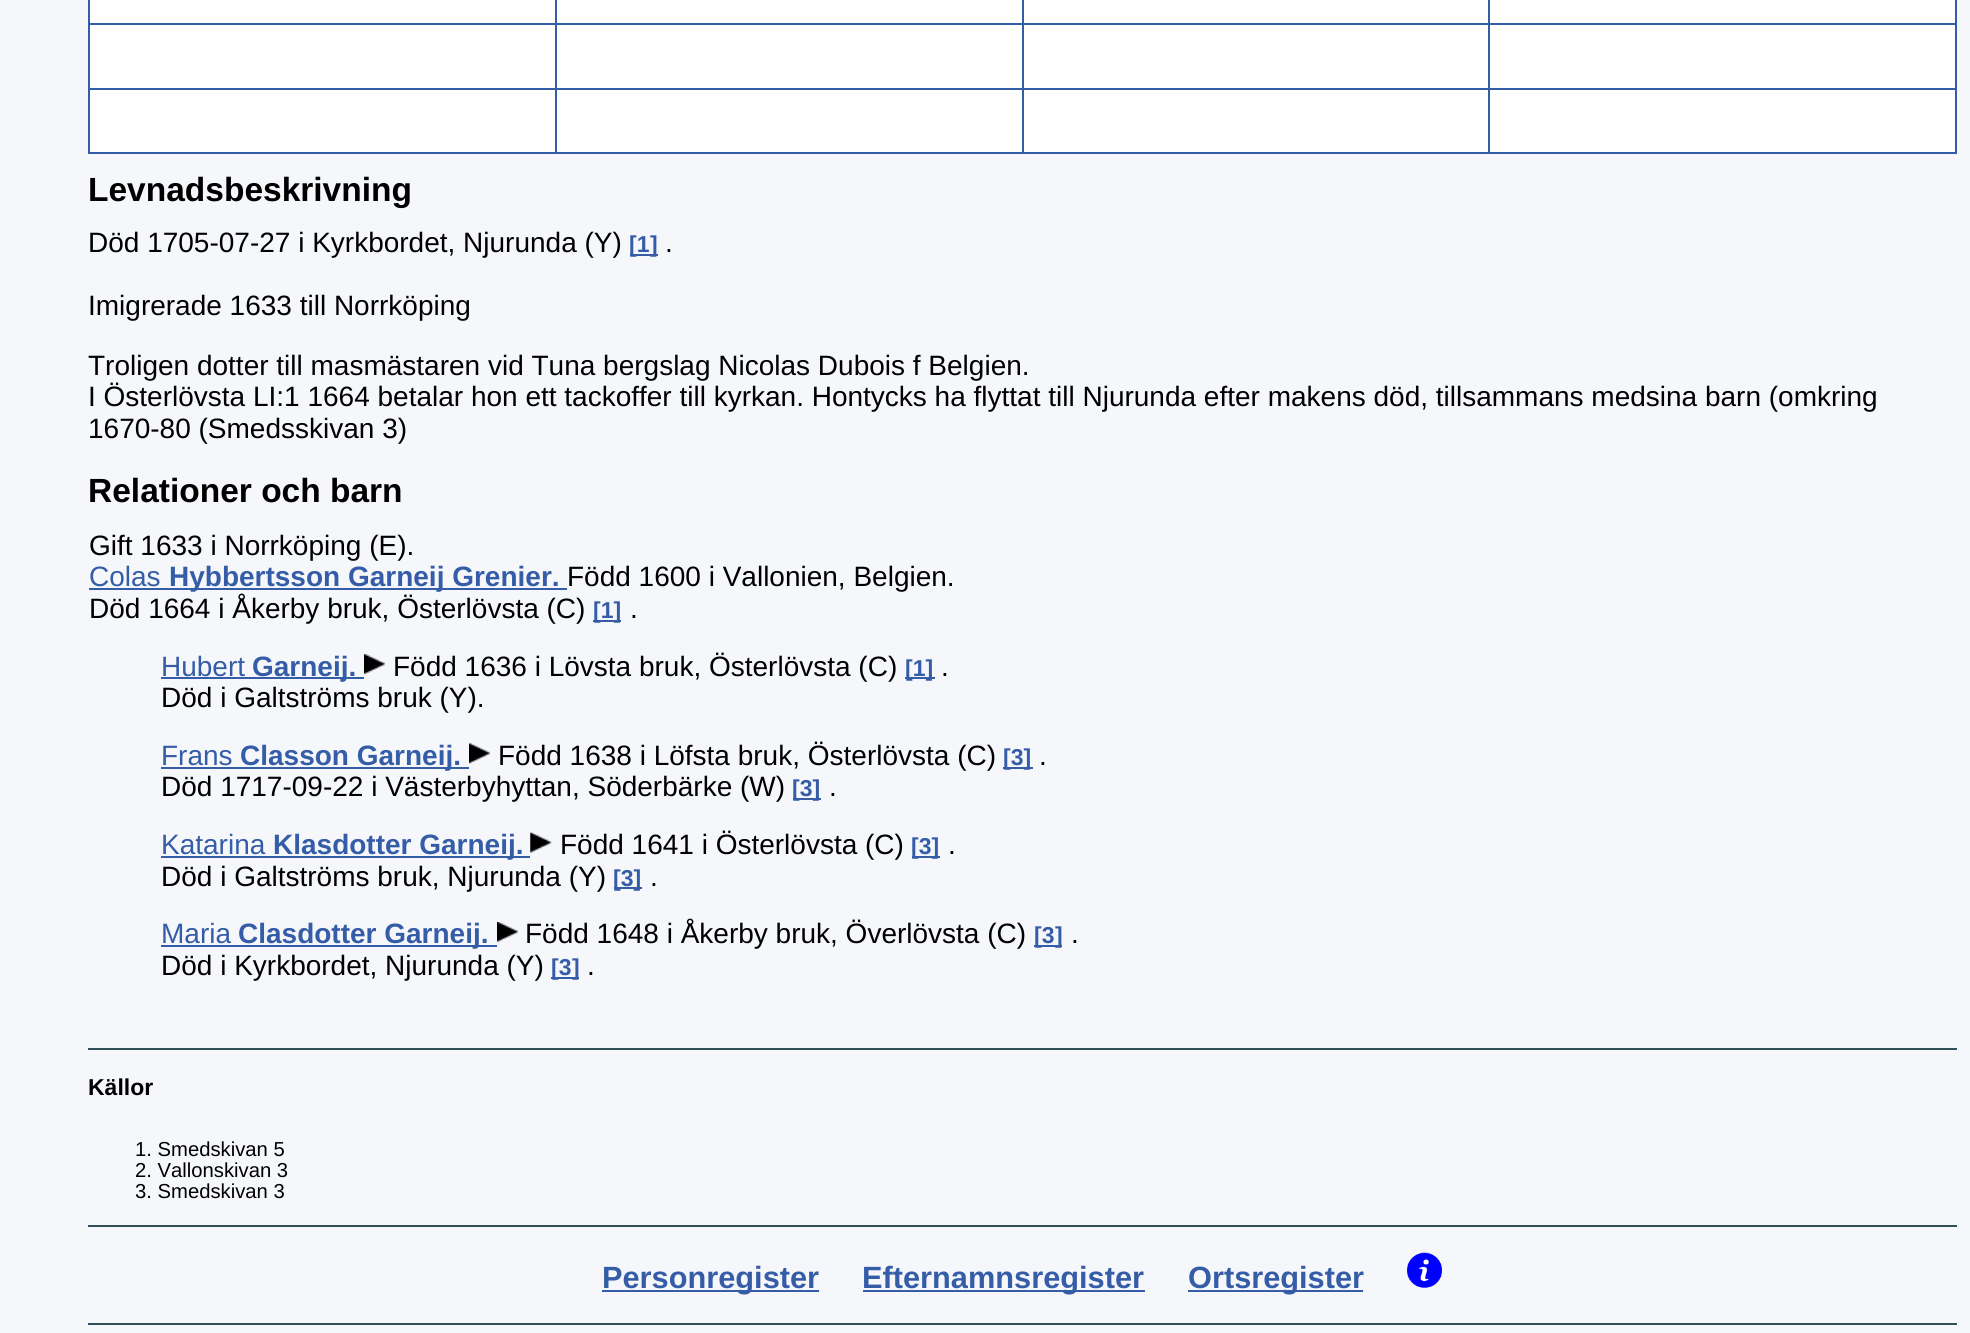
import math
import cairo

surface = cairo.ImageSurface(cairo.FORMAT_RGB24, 1970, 1333)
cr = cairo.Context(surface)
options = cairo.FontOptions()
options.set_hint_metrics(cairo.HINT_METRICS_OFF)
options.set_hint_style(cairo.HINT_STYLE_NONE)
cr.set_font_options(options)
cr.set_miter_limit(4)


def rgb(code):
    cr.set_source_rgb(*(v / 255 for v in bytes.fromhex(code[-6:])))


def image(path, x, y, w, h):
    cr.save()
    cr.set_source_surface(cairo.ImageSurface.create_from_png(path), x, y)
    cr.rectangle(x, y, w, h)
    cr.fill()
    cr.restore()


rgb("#f5f7fb")
cr.paint()
for x, y, w, h, color in [
    (1955, 0, 2, 154, "#355ca7"),
    (88, 152, 1869, 2, "#355ca7"),
    (88, 0, 2, 154, "#355ca7"),
    (90, 0, 465, 152, "#ffffff"),
    (557, 0, 465, 152, "#ffffff"),
    (88, 23, 1869, 2, "#355ca7"),
    (1024, 25, 464, 127, "#ffffff"),
    (88, 88, 1869, 2, "#355ca7"),
    (1022, 0, 2, 154, "#355ca7"),
    (1490, 25, 465, 63, "#ffffff"),
    (1490, 90, 465, 62, "#ffffff"),
    (1488, 0, 2, 154, "#355ca7"),
    (555, 0, 2, 154, "#355ca7"),
    (1024, 0, 464, 23, "#ffffff"),
    (1490, 0, 465, 23, "#ffffff"),
    (630, 254, 19, 2, "#355ca7"),
    (649, 254, 9, 2, "#355ca7"),
    (89, 588, 478, 2, "#355ca7"),
    (593, 620, 28, 2, "#355ca7"),
    (161, 677, 203, 2, "#355ca7"),
]:
    rgb(color)
    cr.rectangle(x, y, w, h)
    cr.fill()
image("img/1.png", 364, 654, 21, 21)
cr.rectangle(905, 677, 30, 2)
cr.fill()
cr.rectangle(161, 767, 308, 2)
cr.fill()
image("img/2.png", 469, 743, 21, 21)
for x, y, w, h, color in [
    (1003, 767, 30, 2, "#355ca7"),
    (793, 798, 28, 2, "#355ca7"),
    (161, 856, 369, 2, "#355ca7"),
]:
    rgb(color)
    cr.rectangle(x, y, w, h)
    cr.fill()
image("img/3.png", 530, 832, 22, 21)
for x, y, w, h, color in [
    (912, 856, 28, 2, "#355ca7"),
    (614, 887, 28, 2, "#355ca7"),
    (161, 945, 336, 2, "#355ca7"),
]:
    rgb(color)
    cr.rectangle(x, y, w, h)
    cr.fill()
image("img/4.png", 497, 922, 21, 20)
for x, y, w, h, color in [
    (1034, 945, 7, 2, "#355ca7"),
    (1041, 945, 21, 2, "#355ca7"),
    (551, 977, 7, 2, "#355ca7"),
    (558, 977, 21, 2, "#355ca7"),
    (88, 1048, 1869, 2, "#305059"),
    (88, 1225, 1869, 2, "#305059"),
    (88, 1323, 1869, 2, "#305059"),
    (602, 1290, 217, 2, "#355ca7"),
    (863, 1290, 282, 2, "#355ca7"),
    (1188, 1290, 175, 2, "#355ca7"),
]:
    rgb(color)
    cr.rectangle(x, y, w, h)
    cr.fill()
image("img/5.png", 1407, 1252, 35, 36)
cr.select_font_face("Liberation Sans", cairo.FONT_SLANT_NORMAL, cairo.FONT_WEIGHT_BOLD)
cr.set_font_size(33.5)
rgb("#000000")
cr.move_to(88, 201)
cr.show_text("Levnadsbeskrivning")
cr.select_font_face("Liberation Sans")
cr.set_font_size(28)
cr.move_to(88, 252)
cr.show_text("Död 1705-07-27 i Kyrkbordet, Njurunda (Y)")
cr.select_font_face("Liberation Sans", cairo.FONT_SLANT_NORMAL, cairo.FONT_WEIGHT_BOLD)
cr.set_font_size(23)
rgb("#355ca7")
cr.move_to(629, 252)
cr.show_text("[1")
cr.move_to(650, 252)
cr.show_text("]")
cr.select_font_face("Liberation Sans")
cr.set_font_size(28)
rgb("#000000")
for x, y, s in [
    (665, 252, "."),
    (88, 315, "Imigrerade 1633 till Norrköping"),
    (88, 375, "Troligen dotter till masmästaren vid Tuna bergslag Nicolas Dubois f Belgien."),
    (88, 406, "I Österlövsta LI:1 1664 betalar hon ett tackoffer till kyrkan. Hontycks ha flyttat till Njurunda efter makens död, tillsammans medsina barn (omkring"),
    (88, 438, "1670-80 (Smedsskivan 3)"),
]:
    cr.move_to(x, y)
    cr.show_text(s)
cr.select_font_face("Liberation Sans", cairo.FONT_SLANT_NORMAL, cairo.FONT_WEIGHT_BOLD)
cr.set_font_size(33.5)
cr.move_to(88, 502)
cr.show_text("Relationer och barn")
cr.select_font_face("Liberation Sans")
cr.set_font_size(28)
cr.move_to(89, 555)
cr.show_text("Gift 1633 i Norrköping (E).")
rgb("#355ca7")
cr.move_to(89, 586)
cr.show_text("Colas")
cr.select_font_face("Liberation Sans", cairo.FONT_SLANT_NORMAL, cairo.FONT_WEIGHT_BOLD)
cr.move_to(169, 586)
cr.show_text("Hybbertsson Garneij Grenier.")
cr.select_font_face("Liberation Sans")
rgb("#000000")
cr.move_to(567, 586)
cr.show_text("Född 1600 i Vallonien, Belgien.")
cr.move_to(89, 618)
cr.show_text("Död 1664 i Åkerby bruk, Österlövsta (C)")
cr.select_font_face("Liberation Sans", cairo.FONT_SLANT_NORMAL, cairo.FONT_WEIGHT_BOLD)
cr.set_font_size(23)
rgb("#355ca7")
cr.move_to(593, 618)
cr.show_text("[1]")
cr.select_font_face("Liberation Sans")
cr.set_font_size(28)
rgb("#000000")
cr.move_to(630, 618)
cr.show_text(".")
rgb("#355ca7")
cr.move_to(161, 676)
cr.show_text("Hubert")
cr.select_font_face("Liberation Sans", cairo.FONT_SLANT_NORMAL, cairo.FONT_WEIGHT_BOLD)
cr.move_to(252, 676)
cr.show_text("Garneij.")
cr.select_font_face("Liberation Sans")
rgb("#000000")
cr.move_to(393, 676)
cr.show_text("Född 1636 i Lövsta bruk, Österlövsta (C)")
cr.select_font_face("Liberation Sans", cairo.FONT_SLANT_NORMAL, cairo.FONT_WEIGHT_BOLD)
cr.set_font_size(23)
rgb("#355ca7")
cr.move_to(905, 676)
cr.show_text("[1]")
cr.select_font_face("Liberation Sans")
cr.set_font_size(28)
rgb("#000000")
cr.move_to(941, 676)
cr.show_text(".")
cr.move_to(161, 707)
cr.show_text("Död i Galtströms bruk (Y).")
rgb("#355ca7")
cr.move_to(161, 765)
cr.show_text("Frans")
cr.select_font_face("Liberation Sans", cairo.FONT_SLANT_NORMAL, cairo.FONT_WEIGHT_BOLD)
cr.move_to(240, 765)
cr.show_text("Classon Garneij.")
cr.select_font_face("Liberation Sans")
rgb("#000000")
cr.move_to(498, 765)
cr.show_text("Född 1638 i Löfsta bruk, Österlövsta (C)")
cr.select_font_face("Liberation Sans", cairo.FONT_SLANT_NORMAL, cairo.FONT_WEIGHT_BOLD)
cr.set_font_size(23)
rgb("#355ca7")
cr.move_to(1003, 765)
cr.show_text("[3]")
cr.select_font_face("Liberation Sans")
cr.set_font_size(28)
rgb("#000000")
cr.move_to(1039, 765)
cr.show_text(".")
cr.move_to(161, 796)
cr.show_text("Död 1717-09-22 i Västerbyhyttan, Söderbärke (W)")
cr.select_font_face("Liberation Sans", cairo.FONT_SLANT_NORMAL, cairo.FONT_WEIGHT_BOLD)
cr.set_font_size(23)
rgb("#355ca7")
cr.move_to(792, 796)
cr.show_text("[3]")
cr.select_font_face("Liberation Sans")
cr.set_font_size(28)
rgb("#000000")
cr.move_to(829, 796)
cr.show_text(".")
rgb("#355ca7")
cr.move_to(161, 854)
cr.show_text("Katarina")
cr.select_font_face("Liberation Sans", cairo.FONT_SLANT_NORMAL, cairo.FONT_WEIGHT_BOLD)
cr.move_to(273, 854)
cr.show_text("Klasdotter Garneij.")
cr.select_font_face("Liberation Sans")
rgb("#000000")
cr.move_to(560, 854)
cr.show_text("Född 1641 i Österlövsta (C)")
cr.select_font_face("Liberation Sans", cairo.FONT_SLANT_NORMAL, cairo.FONT_WEIGHT_BOLD)
cr.set_font_size(23)
rgb("#355ca7")
cr.move_to(911, 854)
cr.show_text("[3]")
cr.select_font_face("Liberation Sans")
cr.set_font_size(28)
rgb("#000000")
cr.move_to(948, 854)
cr.show_text(".")
cr.move_to(161, 886)
cr.show_text("Död i Galtströms bruk, Njurunda (Y)")
cr.select_font_face("Liberation Sans", cairo.FONT_SLANT_NORMAL, cairo.FONT_WEIGHT_BOLD)
cr.set_font_size(23)
rgb("#355ca7")
cr.move_to(613, 886)
cr.show_text("[3]")
cr.select_font_face("Liberation Sans")
cr.set_font_size(28)
rgb("#000000")
cr.move_to(650, 886)
cr.show_text(".")
rgb("#355ca7")
cr.move_to(161, 943)
cr.show_text("Maria")
cr.select_font_face("Liberation Sans", cairo.FONT_SLANT_NORMAL, cairo.FONT_WEIGHT_BOLD)
cr.move_to(238, 943)
cr.show_text("Clasdotter Garneij.")
cr.select_font_face("Liberation Sans")
rgb("#000000")
cr.move_to(525, 943)
cr.show_text("Född 1648 i Åkerby bruk, Överlövsta (C)")
cr.select_font_face("Liberation Sans", cairo.FONT_SLANT_NORMAL, cairo.FONT_WEIGHT_BOLD)
cr.set_font_size(23)
rgb("#355ca7")
cr.move_to(1034, 943)
cr.show_text("[3")
cr.move_to(1055, 943)
cr.show_text("]")
cr.select_font_face("Liberation Sans")
cr.set_font_size(28)
rgb("#000000")
cr.move_to(1071, 943)
cr.show_text(".")
cr.move_to(161, 975)
cr.show_text("Död i Kyrkbordet, Njurunda (Y)")
cr.select_font_face("Liberation Sans", cairo.FONT_SLANT_NORMAL, cairo.FONT_WEIGHT_BOLD)
cr.set_font_size(23)
rgb("#355ca7")
cr.move_to(551, 975)
cr.show_text("[3")
cr.move_to(572, 975)
cr.show_text("]")
cr.select_font_face("Liberation Sans")
cr.set_font_size(28)
rgb("#000000")
cr.move_to(587, 975)
cr.show_text(".")
cr.select_font_face("Liberation Sans", cairo.FONT_SLANT_NORMAL, cairo.FONT_WEIGHT_BOLD)
cr.set_font_size(23)
cr.move_to(88, 1095)
cr.show_text("Källor")
cr.select_font_face("Liberation Sans")
cr.set_font_size(20.25)
for x, y, s in [
    (135, 1156, "1. Smedskivan 5"),
    (135, 1177, "2. Vallonskivan 3"),
    (135, 1198, "3. Smedskivan 3"),
]:
    cr.move_to(x, y)
    cr.show_text(s)
cr.select_font_face("Liberation Sans", cairo.FONT_SLANT_NORMAL, cairo.FONT_WEIGHT_BOLD)
cr.set_font_size(30.75)
rgb("#355ca7")
for x, y, s in [
    (602, 1288, "Personregister"),
    (862, 1288, "Efternamnsregister"),
    (1188, 1288, "Ortsregister"),
]:
    cr.move_to(x, y)
    cr.show_text(s)
surface.write_to_png("page.png")
